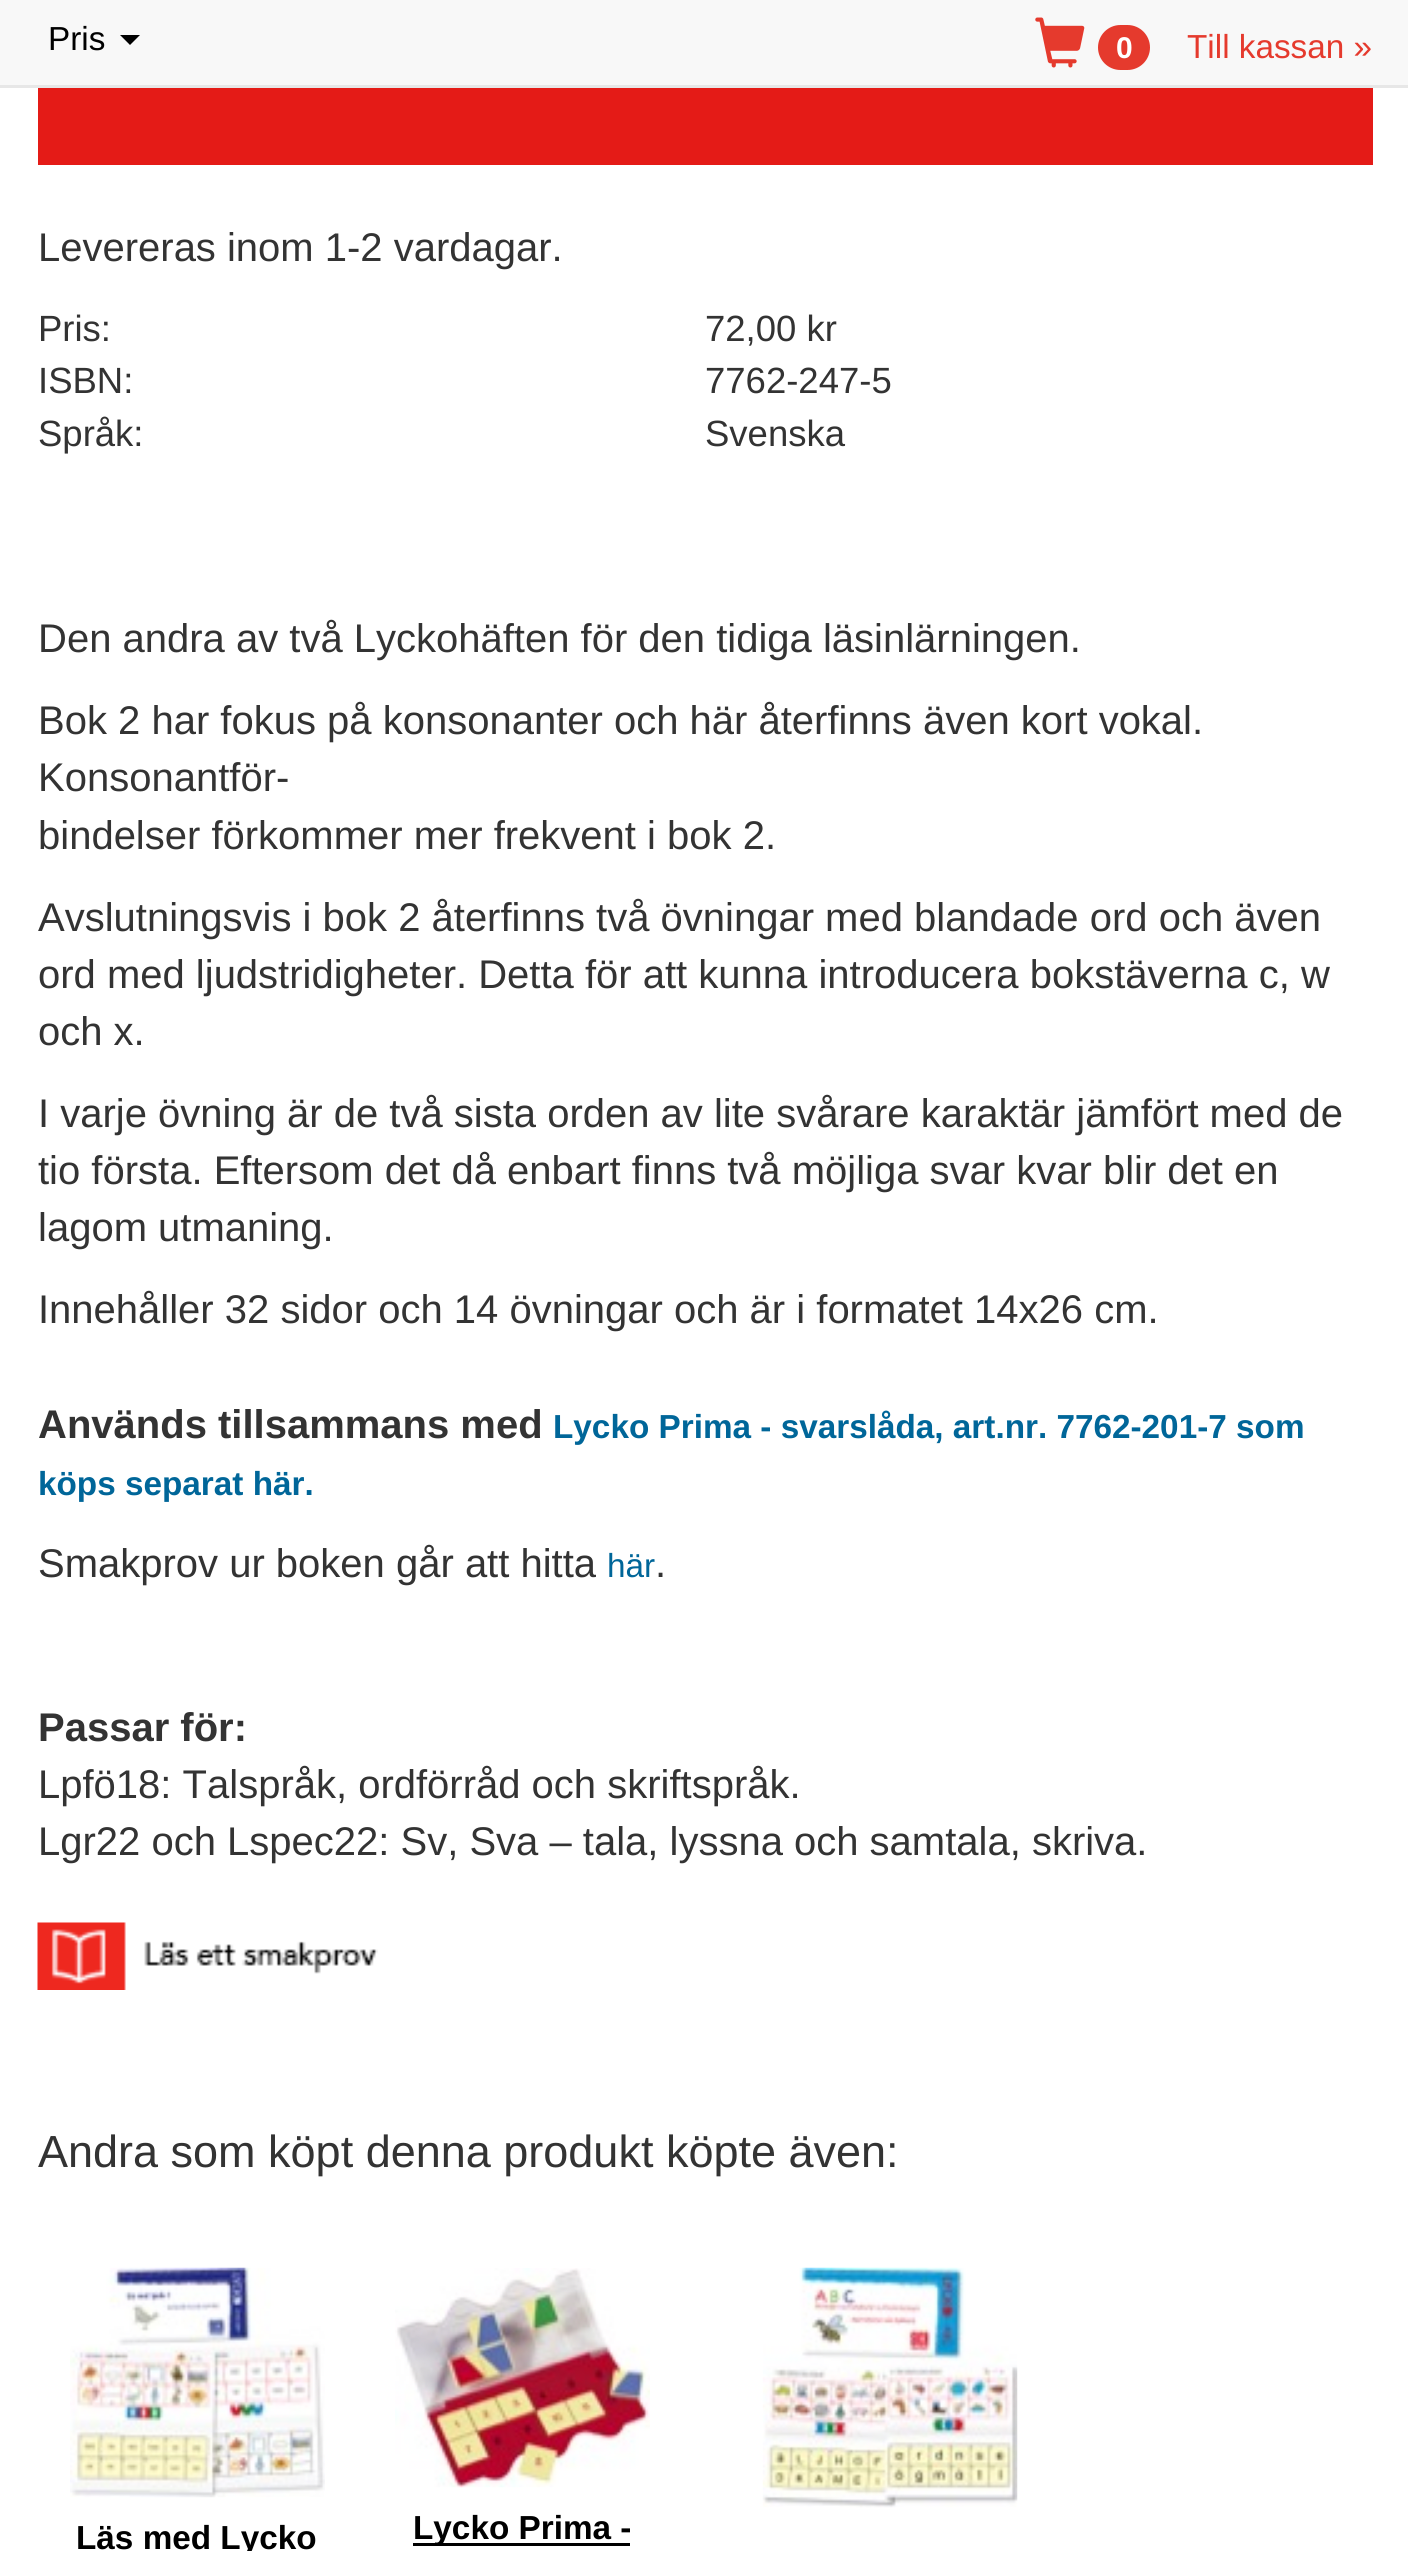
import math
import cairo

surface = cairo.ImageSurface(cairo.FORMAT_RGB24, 1408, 2551)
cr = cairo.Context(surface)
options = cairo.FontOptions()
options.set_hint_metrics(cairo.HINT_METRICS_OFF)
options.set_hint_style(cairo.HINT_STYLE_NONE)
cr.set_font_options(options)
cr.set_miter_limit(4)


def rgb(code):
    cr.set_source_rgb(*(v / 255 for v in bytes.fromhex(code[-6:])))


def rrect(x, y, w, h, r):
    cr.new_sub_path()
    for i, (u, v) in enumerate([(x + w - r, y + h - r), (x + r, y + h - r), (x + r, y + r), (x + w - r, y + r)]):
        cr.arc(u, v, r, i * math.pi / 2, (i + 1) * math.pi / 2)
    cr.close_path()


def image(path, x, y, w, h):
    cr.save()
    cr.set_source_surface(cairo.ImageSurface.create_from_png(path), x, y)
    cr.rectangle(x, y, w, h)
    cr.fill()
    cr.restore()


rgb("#ffffff")
cr.paint()
rgb("#f8f8f8")
cr.rectangle(0, 0, 1408, 85)
cr.fill()
rgb("#e7e7e7")
cr.rectangle(0, 85, 1408, 3)
cr.fill()
rgb("#000000")
cr.new_path()
cr.move_to(120, 35)
cr.line_to(140, 35)
cr.line_to(130, 45)
cr.close_path()
cr.fill()
image("img/1.png", 1035, 17, 50, 51)
rgb("#e53a2d")
rrect(1098, 25, 52, 45, 22.5)
cr.fill()
rgb("#e41b17")
cr.rectangle(38, 88, 1335, 77)
cr.fill()
image("img/2.png", 37, 1922, 341, 68)
image("img/3.png", 762, 2267, 256, 241)
image("img/4.png", 70, 2267, 255, 231)
image("img/5.png", 395, 2268, 255, 220)
rgb("#000000")
cr.rectangle(413, 2543, 217, 3)
cr.fill()
cr.select_font_face("Liberation Sans")
cr.set_font_size(33.3)
cr.move_to(48, 50)
cr.show_text("Pris")
cr.select_font_face("Liberation Sans", cairo.FONT_SLANT_NORMAL, cairo.FONT_WEIGHT_BOLD)
cr.set_font_size(30)
rgb("#ffffff")
cr.move_to(1116, 58)
cr.show_text("0")
cr.select_font_face("Liberation Sans")
cr.set_font_size(33.3)
rgb("#e53a2d")
cr.move_to(1187, 58)
cr.show_text("Till kassan »")
cr.set_font_size(40)
rgb("#333333")
cr.move_to(38, 261)
cr.show_text("Levereras inom 1-2 vardagar.")
cr.set_font_size(36.5)
for x, y, s in [
    (38, 341, "Pris:"),
    (705, 341, "72,00 kr"),
    (38, 393, "ISBN:"),
    (705, 393, "7762-247-5"),
    (38, 446, "Språk:"),
    (705, 446, "Svenska"),
]:
    cr.move_to(x, y)
    cr.show_text(s)
cr.set_font_size(40)
for x, y, s in [
    (38, 652, "Den andra av två Lyckohäften för den tidiga läsinlärningen."),
    (38, 734, "Bok 2 har fokus på konsonanter och här återfinns även kort vokal."),
    (38, 791, "Konsonantför-"),
    (38, 849, "bindelser förkommer mer frekvent i bok 2."),
    (38, 931, "Avslutningsvis i bok 2 återfinns två övningar med blandade ord och även"),
    (38, 988, "ord med ljudstridigheter. Detta för att kunna introducera bokstäverna c, w"),
    (38, 1045, "och x."),
    (38, 1127, "I varje övning är de två sista orden av lite svårare karaktär jämfört med de"),
    (38, 1184, "tio första. Eftersom det då enbart finns två möjliga svar kvar blir det en"),
    (38, 1241, "lagom utmaning."),
    (38, 1323, "Innehåller 32 sidor och 14 övningar och är i formatet 14x26 cm."),
]:
    cr.move_to(x, y)
    cr.show_text(s)
cr.select_font_face("Liberation Sans", cairo.FONT_SLANT_NORMAL, cairo.FONT_WEIGHT_BOLD)
cr.move_to(38, 1438)
cr.show_text("Används tillsammans med")
cr.set_font_size(33.3)
rgb("#006699")
cr.move_to(553, 1438)
cr.show_text("Lycko Prima - svarslåda, art.nr. 7762-201-7 som")
cr.move_to(38, 1495)
cr.show_text("köps separat här.")
cr.select_font_face("Liberation Sans")
cr.set_font_size(40)
rgb("#333333")
cr.move_to(38, 1577)
cr.show_text("Smakprov ur boken går att hitta")
cr.set_font_size(33.3)
rgb("#006699")
cr.move_to(607, 1577)
cr.show_text("här")
cr.set_font_size(40)
rgb("#333333")
cr.move_to(655, 1577)
cr.show_text(".")
cr.select_font_face("Liberation Sans", cairo.FONT_SLANT_NORMAL, cairo.FONT_WEIGHT_BOLD)
cr.move_to(38, 1741)
cr.show_text("Passar för:")
cr.select_font_face("Liberation Sans")
cr.move_to(38, 1798)
cr.show_text("Lpfö18: Talspråk, ordförråd och skriftspråk.")
cr.move_to(38, 1855)
cr.show_text("Lgr22 och Lspec22: Sv, Sva – tala, lyssna och samtala, skriva.")
cr.set_font_size(45)
cr.move_to(38, 2167)
cr.show_text("Andra som köpt denna produkt köpte även:")
cr.select_font_face("Liberation Sans", cairo.FONT_SLANT_NORMAL, cairo.FONT_WEIGHT_BOLD)
cr.set_font_size(33.3)
rgb("#000000")
cr.move_to(76, 2549)
cr.show_text("Läs med Lycko")
cr.move_to(413, 2539)
cr.show_text("Lycko Prima -")
surface.write_to_png("page.png")
